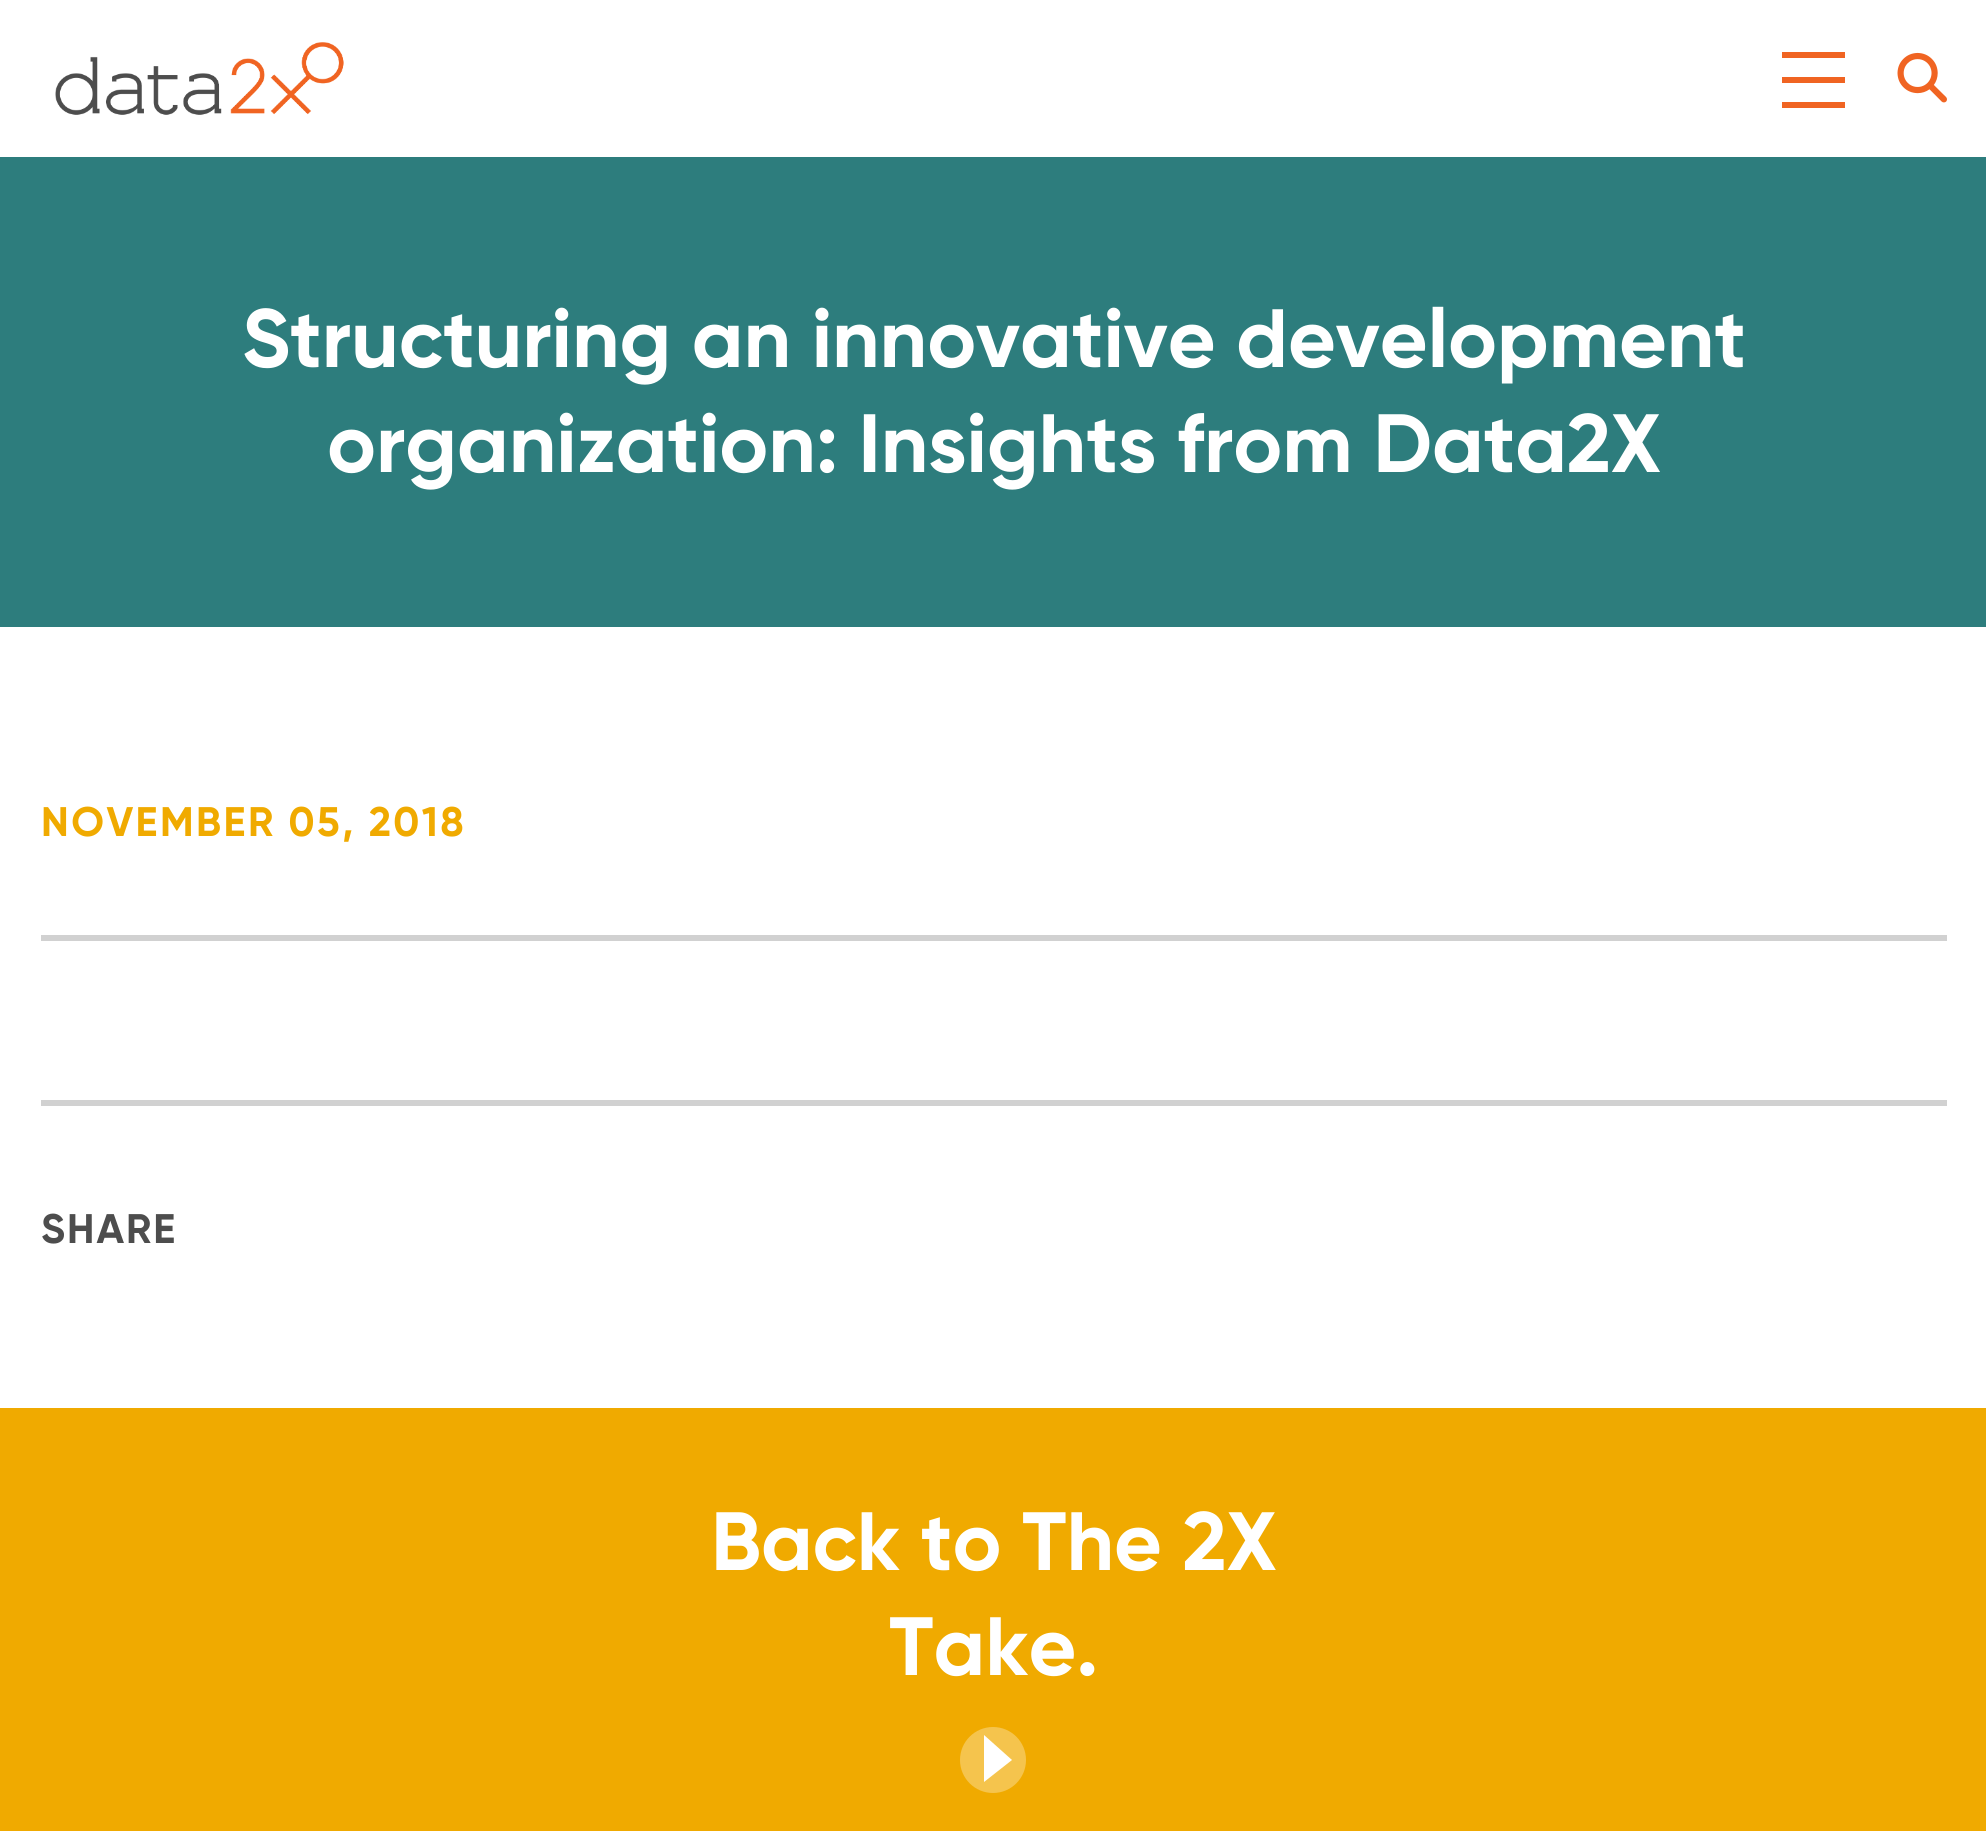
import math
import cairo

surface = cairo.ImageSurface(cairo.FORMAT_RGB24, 1986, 1831)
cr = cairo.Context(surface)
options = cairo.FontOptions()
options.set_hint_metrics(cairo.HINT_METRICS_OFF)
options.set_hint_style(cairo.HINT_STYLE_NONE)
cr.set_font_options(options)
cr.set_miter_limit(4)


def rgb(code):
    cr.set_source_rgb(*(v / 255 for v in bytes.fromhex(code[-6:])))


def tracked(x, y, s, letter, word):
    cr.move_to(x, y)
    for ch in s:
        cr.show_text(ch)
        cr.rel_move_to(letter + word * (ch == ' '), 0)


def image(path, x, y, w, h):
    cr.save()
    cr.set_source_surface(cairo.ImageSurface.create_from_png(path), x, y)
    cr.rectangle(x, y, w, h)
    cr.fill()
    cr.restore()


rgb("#ffffff")
cr.paint()
image("img/1.png", 55, 42, 289, 73)
for x, y, w, h, color in [
    (1782, 77, 63, 6, "#f06422"),
    (1782, 52, 63, 6, "#f06422"),
    (1782, 102, 63, 6, "#f06422"),
]:
    rgb(color)
    cr.rectangle(x, y, w, h)
    cr.fill()
image("img/2.png", 1897, 52, 50, 51)
for x, y, w, h, color in [
    (0, 157, 1986, 470, "#2d7d7d"),
    (41, 935, 1906, 6, "#d1d1d1"),
    (41, 1100, 1906, 6, "#d1d1d1"),
    (0, 1408, 1986, 423, "#f0aa00"),
]:
    rgb(color)
    cr.rectangle(x, y, w, h)
    cr.fill()
rgb("#f5c44d")
cr.arc(993, 1760, 33, 0, 2 * math.pi)
cr.fill()
rgb("#ffffff")
cr.new_path()
cr.move_to(984, 1782)
cr.line_to(984, 1735)
cr.line_to(1012, 1760)
cr.close_path()
cr.fill()
cr.select_font_face("Gilroy", cairo.FONT_SLANT_NORMAL, cairo.FONT_WEIGHT_BOLD)
cr.set_font_size(82.5)
cr.move_to(242, 367)
cr.show_text("Structuring an innovative development")
cr.move_to(327, 472)
cr.show_text("organization: Insights from Data2X")
cr.set_font_size(41.25)
rgb("#f0aa00")
tracked(41, 836, "NOVEMBER 05, 2018", 2.5, 0)
rgb("#4d4d4d")
tracked(41, 1243, "SHARE", 2, 0)
cr.set_font_size(82.5)
rgb("#ffffff")
cr.move_to(711, 1570)
cr.show_text("Back to The 2X")
cr.move_to(889, 1675)
cr.show_text("Take.")
surface.write_to_png("page.png")
